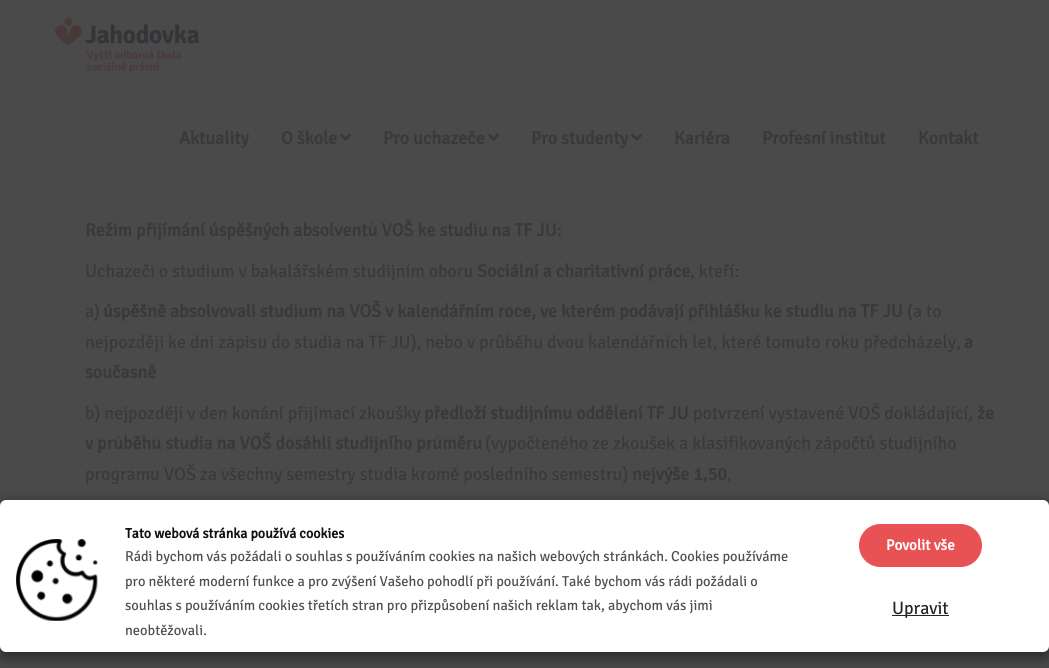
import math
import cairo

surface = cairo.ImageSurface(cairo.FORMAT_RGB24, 1049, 668)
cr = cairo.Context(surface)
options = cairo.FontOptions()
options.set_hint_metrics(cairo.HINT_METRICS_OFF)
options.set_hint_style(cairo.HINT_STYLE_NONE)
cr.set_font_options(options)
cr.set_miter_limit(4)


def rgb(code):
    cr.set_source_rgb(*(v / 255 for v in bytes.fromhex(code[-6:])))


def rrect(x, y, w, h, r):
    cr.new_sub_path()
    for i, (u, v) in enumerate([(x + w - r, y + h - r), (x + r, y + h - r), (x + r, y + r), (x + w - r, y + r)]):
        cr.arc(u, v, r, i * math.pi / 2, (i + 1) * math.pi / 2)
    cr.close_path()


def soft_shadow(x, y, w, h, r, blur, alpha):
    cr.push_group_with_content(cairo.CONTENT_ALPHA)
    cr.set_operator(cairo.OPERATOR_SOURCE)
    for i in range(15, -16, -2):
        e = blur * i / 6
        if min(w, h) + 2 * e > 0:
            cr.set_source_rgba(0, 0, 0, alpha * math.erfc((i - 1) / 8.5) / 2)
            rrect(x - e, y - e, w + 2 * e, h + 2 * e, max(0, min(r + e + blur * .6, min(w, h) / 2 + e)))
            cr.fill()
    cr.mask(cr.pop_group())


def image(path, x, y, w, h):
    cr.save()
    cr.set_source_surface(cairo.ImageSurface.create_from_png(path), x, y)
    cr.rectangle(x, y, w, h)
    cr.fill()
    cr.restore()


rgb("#4a4a4a")
cr.paint()
image("img/1.png", 55, 18, 144, 55)
image("img/2.png", 340, 133, 12, 8)
image("img/2.png", 488, 133, 12, 8)
image("img/2.png", 631, 133, 12, 8)
rgb("#000000")
soft_shadow(0, 505, 1049, 152, 6, 7.5, 0.5)
rgb("#ffffff")
rrect(0, 500, 1049, 152, 6)
cr.fill()
image("img/3.png", 16, 539, 82, 82)
rgb("#e95254")
rrect(859.5, 524.5, 122, 42, 21)
cr.fill_preserve()
cr.set_line_width(1)
cr.stroke()
rgb("#212529")
cr.rectangle(892, 615, 57, 1)
cr.fill()
cr.select_font_face("Signika Negative", cairo.FONT_SLANT_NORMAL, cairo.FONT_WEIGHT_BOLD)
cr.set_font_size(18)
rgb("#393939")
for x, y, s in [
    (179, 144, "Aktuality"),
    (281, 144, "O škole"),
    (383, 144, "Pro uchazeče"),
    (531, 144, "Pro studenty"),
    (674, 144, "Kariéra"),
    (762, 144, "Profesní institut"),
    (918, 144, "Kontakt"),
    (85, 236, "Režim přijímání úspěšných absolventů VOŠ ke studiu na TF JU:"),
]:
    cr.move_to(x, y)
    cr.show_text(s)
cr.select_font_face("Signika Negative Light")
cr.move_to(85, 277)
cr.show_text("Uchazeči o studium v bakalářském studijním oboru")
cr.select_font_face("Signika Negative", cairo.FONT_SLANT_NORMAL, cairo.FONT_WEIGHT_BOLD)
cr.move_to(477, 277)
cr.show_text("Sociální a charitativní práce")
cr.select_font_face("Signika Negative Light")
cr.move_to(690, 277)
cr.show_text(", kteří:")
cr.move_to(85, 317)
cr.show_text("a)")
cr.select_font_face("Signika Negative", cairo.FONT_SLANT_NORMAL, cairo.FONT_WEIGHT_BOLD)
cr.move_to(103, 317)
cr.show_text("úspěšně absolvovali studium na VOŠ v kalendářním roce, ve kterém podávají přihlášku ke studiu na TF JU")
cr.select_font_face("Signika Negative Light")
cr.move_to(907, 317)
cr.show_text("(a to")
cr.move_to(85, 348)
cr.show_text("nejpozději ke dni zápisu do studia na TF JU), nebo v průběhu dvou kalendářních let, které tomuto roku předcházely,")
cr.select_font_face("Signika Negative", cairo.FONT_SLANT_NORMAL, cairo.FONT_WEIGHT_BOLD)
cr.move_to(964, 348)
cr.show_text("a")
cr.move_to(85, 378)
cr.show_text("současně")
cr.select_font_face("Signika Negative Light")
cr.move_to(85, 419)
cr.show_text("b) nejpozději v den konání přijímací zkoušky")
cr.select_font_face("Signika Negative", cairo.FONT_SLANT_NORMAL, cairo.FONT_WEIGHT_BOLD)
cr.move_to(424, 419)
cr.show_text("předloží studijnímu oddělení TF JU")
cr.select_font_face("Signika Negative Light")
cr.move_to(693, 419)
cr.show_text("potvrzení vystavené VOŠ dokládající,")
cr.select_font_face("Signika Negative", cairo.FONT_SLANT_NORMAL, cairo.FONT_WEIGHT_BOLD)
cr.move_to(977, 419)
cr.show_text("že")
cr.move_to(85, 449)
cr.show_text("v průběhu studia na VOŠ dosáhli studijního průměru")
cr.select_font_face("Signika Negative Light")
cr.move_to(485, 449)
cr.show_text("(vypočteného ze zkoušek a klasifikovaných zápočtů studijního")
cr.move_to(85, 480)
cr.show_text("programu VOŠ za všechny semestry studia kromě posledního semestru)")
cr.select_font_face("Signika Negative", cairo.FONT_SLANT_NORMAL, cairo.FONT_WEIGHT_BOLD)
cr.move_to(632, 480)
cr.show_text("nejvýše 1,50")
cr.select_font_face("Signika Negative Light")
cr.move_to(727, 480)
cr.show_text(",")
cr.select_font_face("Signika Negative", cairo.FONT_SLANT_NORMAL, cairo.FONT_WEIGHT_BOLD)
cr.set_font_size(14)
rgb("#111111")
cr.move_to(125, 538)
cr.show_text("Tato webová stránka používá cookies")
cr.select_font_face("Signika Negative Light")
cr.set_font_size(14.4)
rgb("#4d4d4d")
for x, y, s in [
    (125, 561, "Rádi bychom vás požádali o souhlas s používáním cookies na našich webových stránkách. Cookies používáme"),
    (125, 586, "pro některé moderní funkce a pro zvýšení Vašeho pohodlí při používání. Také bychom vás rádi požádali o"),
    (125, 610, "souhlas s používáním cookies třetích stran pro přizpůsobení našich reklam tak, abychom vás jimi"),
    (125, 635, "neobtěžovali."),
]:
    cr.move_to(x, y)
    cr.show_text(s)
cr.select_font_face("Signika Negative", cairo.FONT_SLANT_NORMAL, cairo.FONT_WEIGHT_BOLD)
cr.set_font_size(15)
rgb("#ffffff")
cr.move_to(886, 550)
cr.show_text("Povolit vše")
cr.select_font_face("Signika Negative Light")
cr.set_font_size(18)
rgb("#212529")
cr.move_to(892, 614)
cr.show_text("Upravit")
surface.write_to_png("page.png")
